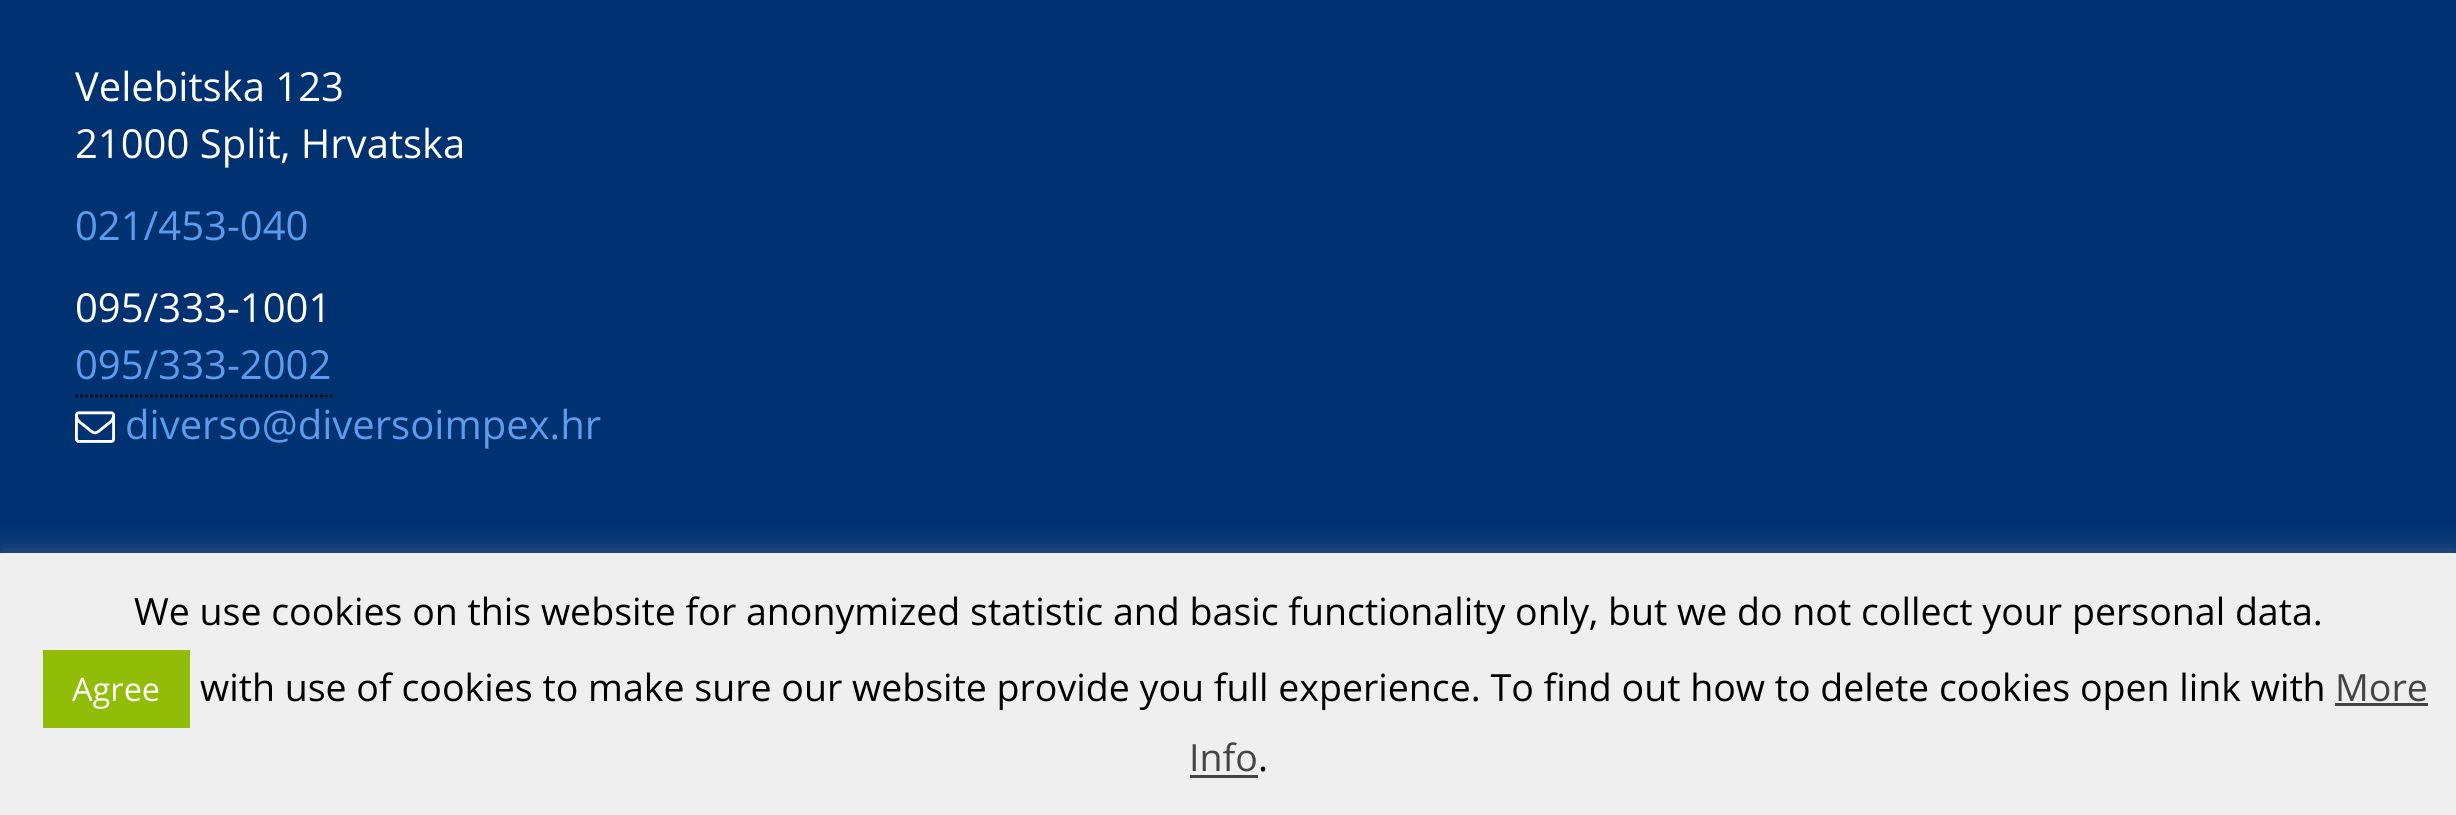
import math
import cairo

surface = cairo.ImageSurface(cairo.FORMAT_RGB24, 2456, 815)
cr = cairo.Context(surface)
options = cairo.FontOptions()
options.set_hint_metrics(cairo.HINT_METRICS_OFF)
options.set_hint_style(cairo.HINT_STYLE_NONE)
cr.set_font_options(options)
cr.set_miter_limit(4)


def rgb(code):
    cr.set_source_rgb(*(v / 255 for v in bytes.fromhex(code[-6:])))


def rrect(x, y, w, h, r):
    cr.new_sub_path()
    for i, (u, v) in enumerate([(x + w - r, y + h - r), (x + r, y + h - r), (x + r, y + r), (x + w - r, y + r)]):
        cr.arc(u, v, r, i * math.pi / 2, (i + 1) * math.pi / 2)
    cr.close_path()


def soft_shadow(x, y, w, h, r, blur, alpha):
    cr.push_group_with_content(cairo.CONTENT_ALPHA)
    cr.set_operator(cairo.OPERATOR_SOURCE)
    for i in range(15, -16, -2):
        e = blur * i / 6
        if min(w, h) + 2 * e > 0:
            cr.set_source_rgba(0, 0, 0, alpha * math.erfc((i - 1) / 8.5) / 2)
            rrect(x - e, y - e, w + 2 * e, h + 2 * e, max(0, min(r + e + blur * .6, min(w, h) / 2 + e)))
            cr.fill()
    cr.mask(cr.pop_group())


def image(path, x, y, w, h):
    cr.save()
    cr.set_source_surface(cairo.ImageSurface.create_from_png(path), x, y)
    cr.rectangle(x, y, w, h)
    cr.fill()
    cr.restore()


rgb("#003171")
cr.paint()
cr.new_path()
cr.move_to(75, 396)
cr.line_to(332.5, 396)
rgb("#000000")
cr.set_line_width(2.5)
cr.set_dash([2.5, 2.5])
cr.stroke()
image("img/1.png", 75, 411, 40, 32)
rgb("#acabab")
soft_shadow(0, 550, 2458, 263, 0, 12.5, 0.3)
for x, y, w, h, color in [
    (0, 553, 2456, 262, "#efefef"),
    (43, 650, 147, 78, "#91bd09"),
    (2335, 703, 93, 3, "#444444"),
    (1190, 775, 68, 3, "#444444"),
]:
    rgb(color)
    cr.rectangle(x, y, w, h)
    cr.fill()
cr.select_font_face("Open Sans")
cr.set_font_size(40)
rgb("#ffffff")
cr.move_to(75, 101)
cr.show_text("Velebitska 123")
cr.move_to(75, 158)
cr.show_text("21000 Split, Hrvatska")
rgb("#5d9cec")
cr.move_to(75, 240)
cr.show_text("021/453-040")
rgb("#ffffff")
cr.move_to(75, 322)
cr.show_text("095/333-1001")
rgb("#5d9cec")
cr.move_to(75, 379)
cr.show_text("095/333-2002")
cr.move_to(125, 439)
cr.show_text("diverso@diversoimpex.hr")
cr.set_font_size(37.5)
rgb("#000000")
cr.move_to(134, 625)
cr.show_text("We use cookies on this website for anonymized statistic and basic functionality only, but we do not collect your personal data.")
cr.set_font_size(32.5)
rgb("#ffffff")
cr.move_to(72, 701)
cr.show_text("Agree")
cr.set_font_size(37.5)
rgb("#000000")
cr.move_to(200, 701)
cr.show_text("with use of cookies to make sure our website provide you full experience. To find out how to delete cookies open link with")
rgb("#444444")
cr.move_to(2335, 701)
cr.show_text("More")
cr.move_to(1189, 771)
cr.show_text("Info")
rgb("#000000")
cr.move_to(1258, 771)
cr.show_text(".")
surface.write_to_png("page.png")
